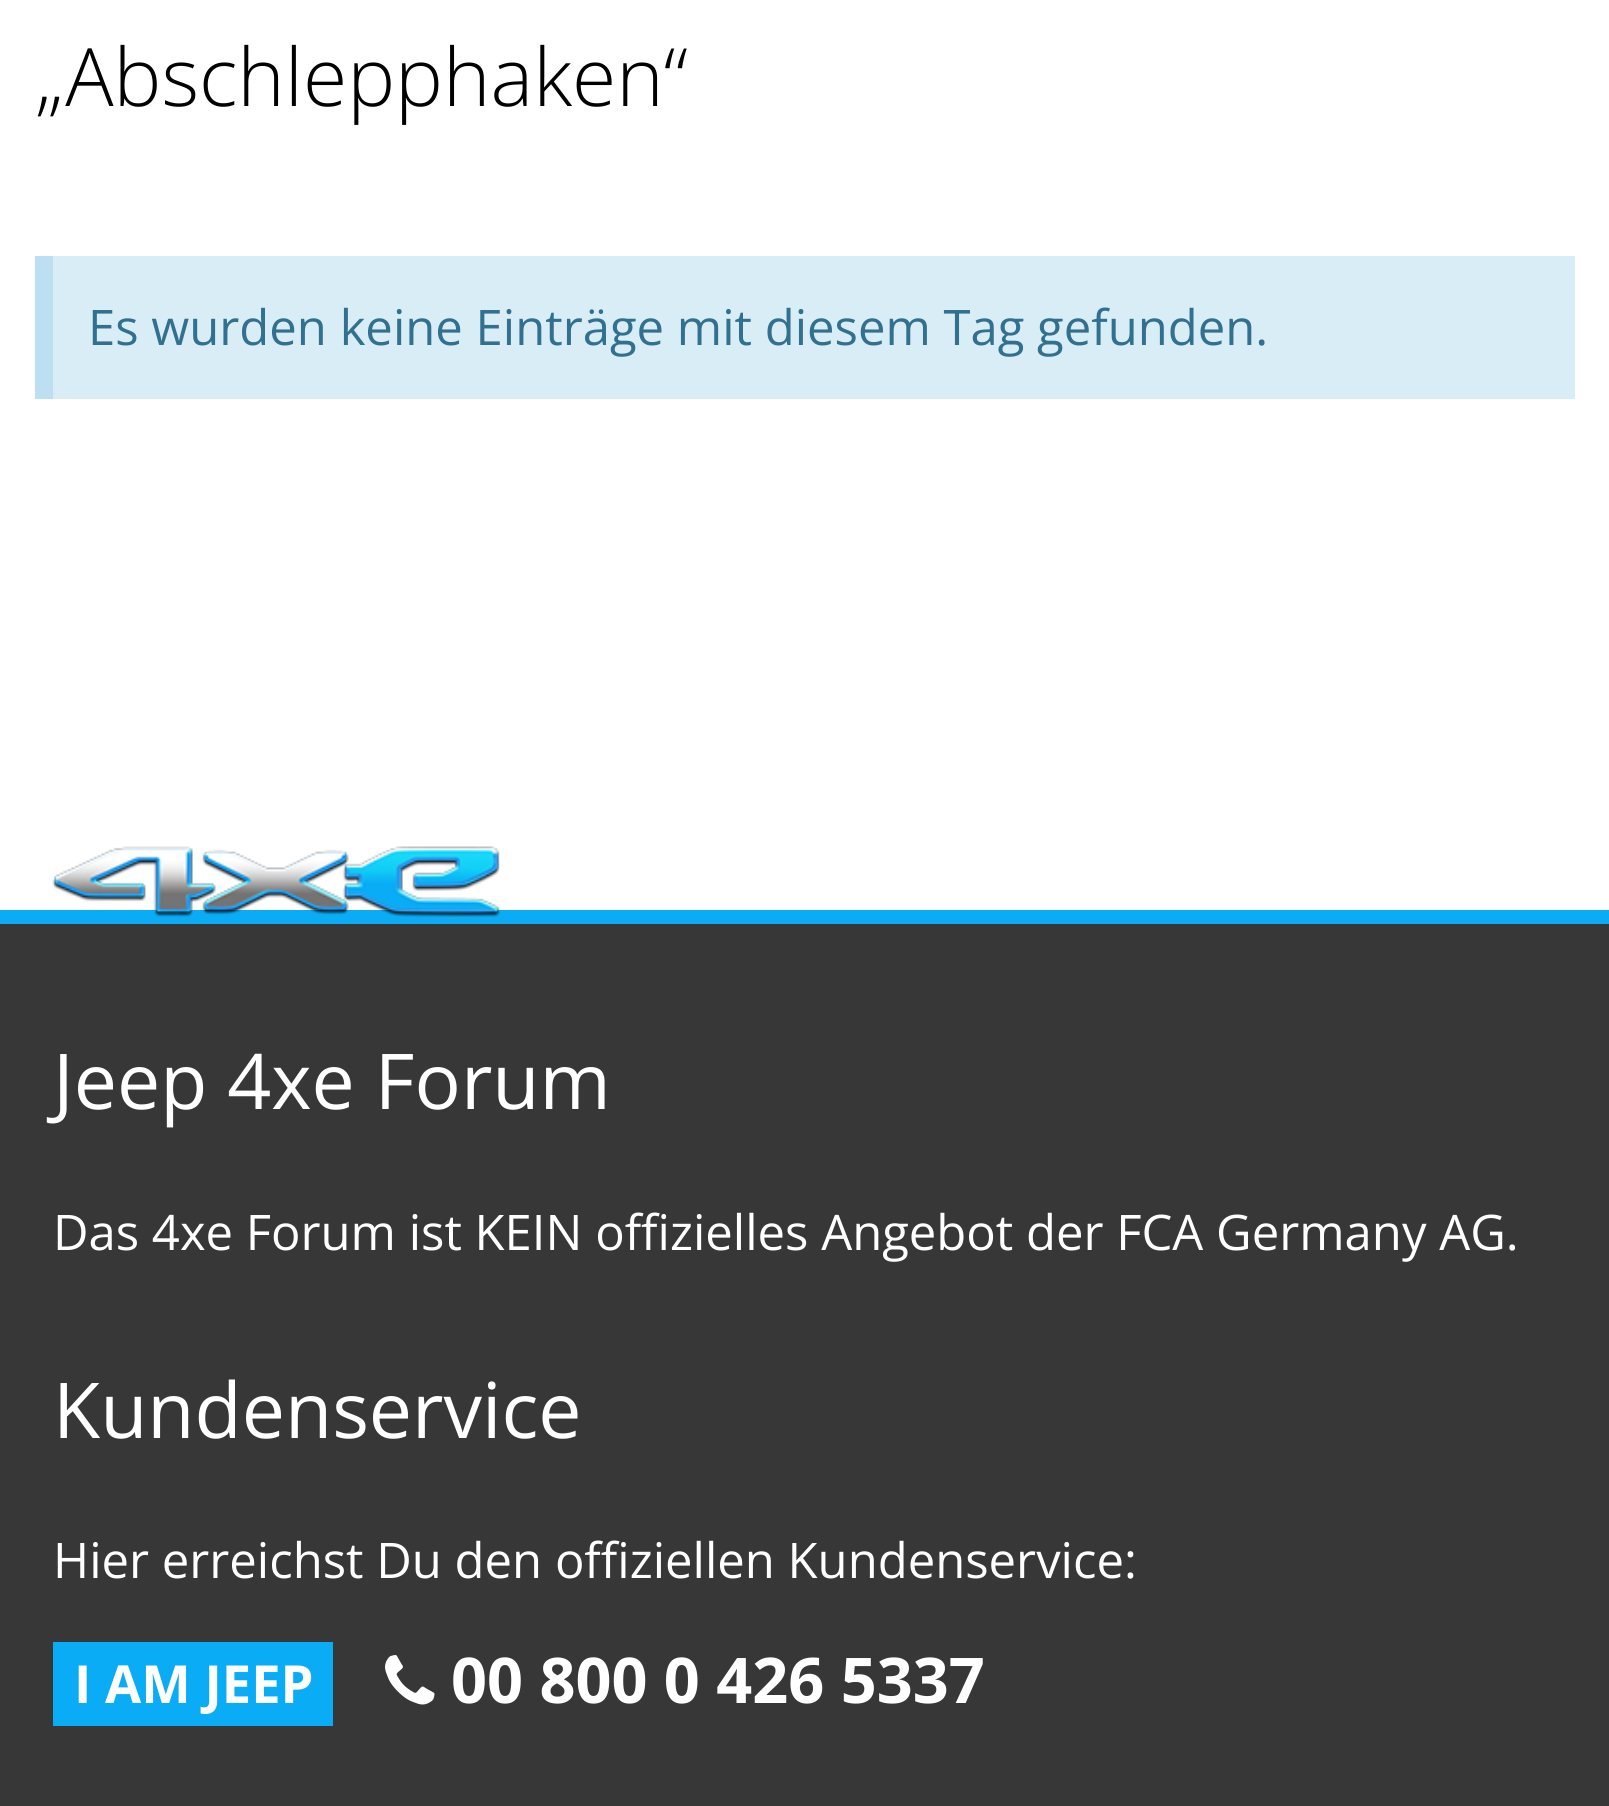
import math
import cairo

surface = cairo.ImageSurface(cairo.FORMAT_RGB24, 1609, 1806)
cr = cairo.Context(surface)
options = cairo.FontOptions()
options.set_hint_metrics(cairo.HINT_METRICS_OFF)
options.set_hint_style(cairo.HINT_STYLE_NONE)
cr.set_font_options(options)
cr.set_miter_limit(4)


def rgb(code):
    cr.set_source_rgb(*(v / 255 for v in bytes.fromhex(code[-6:])))


def image(path, x, y, w, h):
    cr.save()
    cr.set_source_surface(cairo.ImageSurface.create_from_png(path), x, y)
    cr.rectangle(x, y, w, h)
    cr.fill()
    cr.restore()


rgb("#ffffff")
cr.paint()
for x, y, w, h, color in [
    (53, 256, 1522, 143, "#d9edf7"),
    (35, 256, 18, 143, "#bcdff1"),
    (0, 924, 1609, 882, "#373738"),
    (0, 910, 1609, 14, "#0aadf5"),
]:
    rgb(color)
    cr.rectangle(x, y, w, h)
    cr.fill()
image("img/1.png", 52, 846, 448, 71)
cr.rectangle(53, 1642, 280, 84)
cr.fill()
image("img/2.png", 385, 1655, 50, 50)
cr.select_font_face("Open Sans Light")
cr.set_font_size(80.5)
rgb("#000000")
cr.move_to(35, 106)
cr.show_text("„Abschlepphaken“")
cr.select_font_face("Open Sans")
cr.set_font_size(49)
rgb("#31708f")
cr.move_to(88, 345)
cr.show_text("Es wurden keine Einträge mit diesem Tag gefunden.")
cr.set_font_size(77)
rgb("#ffffff")
cr.move_to(53, 1109)
cr.show_text("Jeep 4xe Forum")
cr.set_font_size(49)
cr.move_to(53, 1250)
cr.show_text("Das 4xe Forum ist KEIN offizielles Angebot der FCA Germany AG.")
cr.set_font_size(77)
cr.move_to(53, 1438)
cr.show_text("Kundenservice")
cr.set_font_size(49)
cr.move_to(53, 1578)
cr.show_text("Hier erreichst Du den offiziellen Kundenservice:")
cr.select_font_face("Open Sans", cairo.FONT_SLANT_NORMAL, cairo.FONT_WEIGHT_BOLD)
cr.set_font_size(52.5)
cr.move_to(74, 1703)
cr.show_text("I AM JEEP")
cr.set_font_size(63)
cr.move_to(451, 1703)
cr.show_text("00 800 0 426 5337")
surface.write_to_png("page.png")
